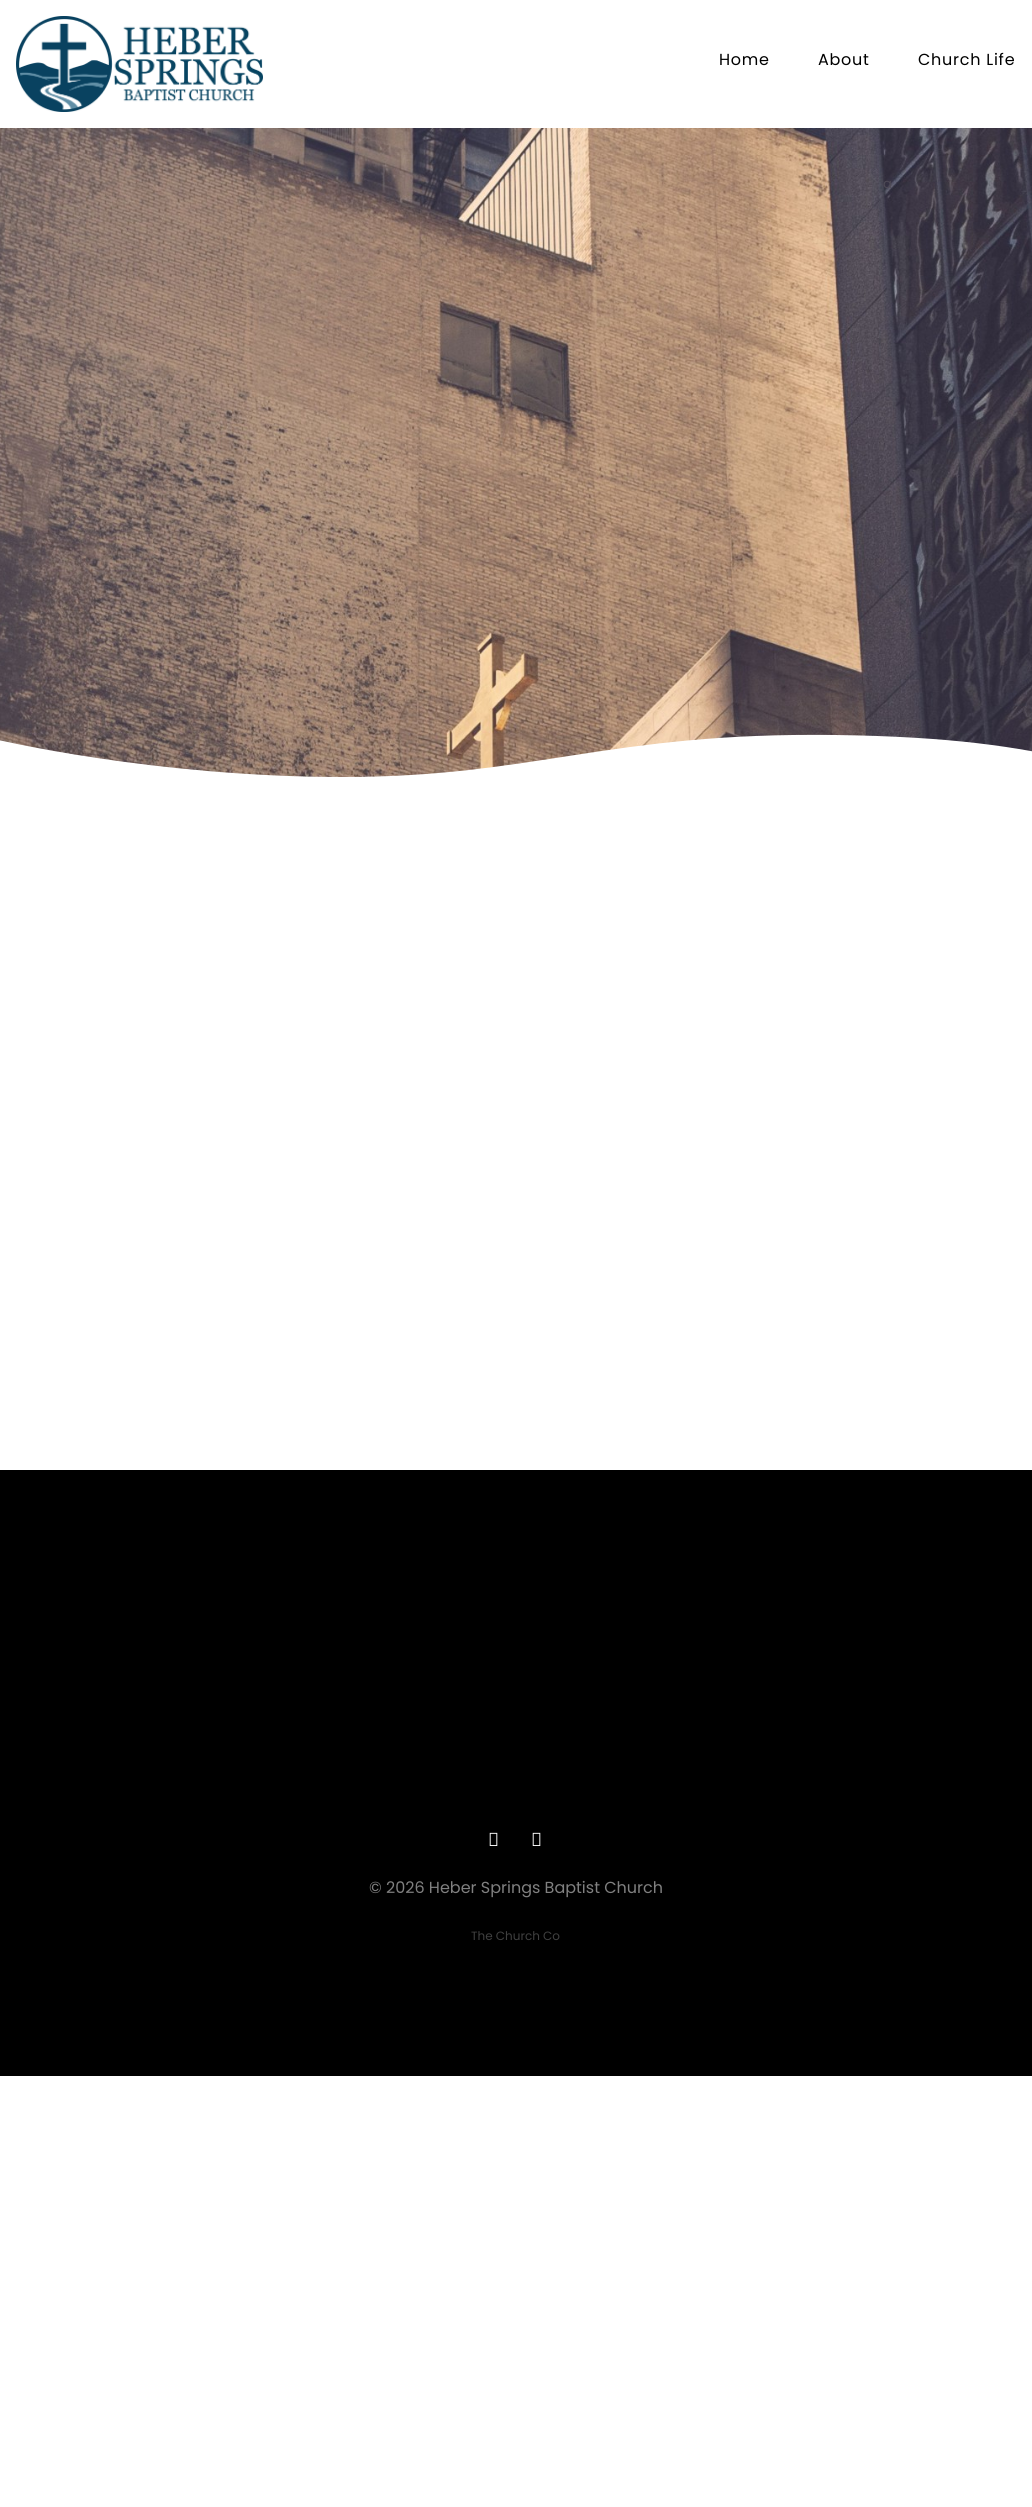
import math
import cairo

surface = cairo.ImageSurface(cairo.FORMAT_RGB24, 1032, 2507)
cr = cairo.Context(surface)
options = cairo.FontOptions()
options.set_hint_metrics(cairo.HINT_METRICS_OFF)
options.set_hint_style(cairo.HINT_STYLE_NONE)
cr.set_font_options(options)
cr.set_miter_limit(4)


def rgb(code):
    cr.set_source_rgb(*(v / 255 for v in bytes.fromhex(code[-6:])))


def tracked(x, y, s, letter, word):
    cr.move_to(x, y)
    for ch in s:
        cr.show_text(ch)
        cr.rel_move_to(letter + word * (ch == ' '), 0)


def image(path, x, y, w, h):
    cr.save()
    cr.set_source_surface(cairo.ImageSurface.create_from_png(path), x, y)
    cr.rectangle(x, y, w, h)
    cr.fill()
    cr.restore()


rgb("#ffffff")
cr.paint()
image("img/1.png", 16, 16, 247, 96)
image("img/2.png", 0, 128, 1032, 649)
rgb("#ffffff")
cr.new_path()
cr.move_to(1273, 805)
cr.curve_to(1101, 777, 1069, 738, 835, 735)
cr.curve_to(609, 732, 534, 777, 343, 777)
cr.curve_to(152, 777, -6, 739, -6, 739)
cr.line_to(-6, 853)
cr.line_to(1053, 853)
cr.close_path()
cr.fill()
rgb("#000000")
cr.rectangle(0, 1470, 1032, 606)
cr.fill()
image("img/3.png", 489, 1832, 9, 14)
image("img/3.png", 532, 1832, 9, 14)
cr.select_font_face("Poppins")
cr.set_font_size(16)
for x, y, s in [
    (719, 65, "Home"),
    (818, 65, "About"),
    (918, 65, "Church Life"),
]:
    tracked(x, y, s, 0.75, 0)
cr.set_font_size(13)
rgb("#4e4a56")
cr.move_to(883, 188)
cr.show_text("a")
cr.set_font_size(16)
rgb("#808080")
cr.move_to(369, 1893)
cr.show_text("© 2026 Heber Springs Baptist Church")
cr.set_font_size(12)
rgb("#404040")
cr.move_to(471, 1940)
cr.show_text("The Church Co")
surface.write_to_png("page.png")
